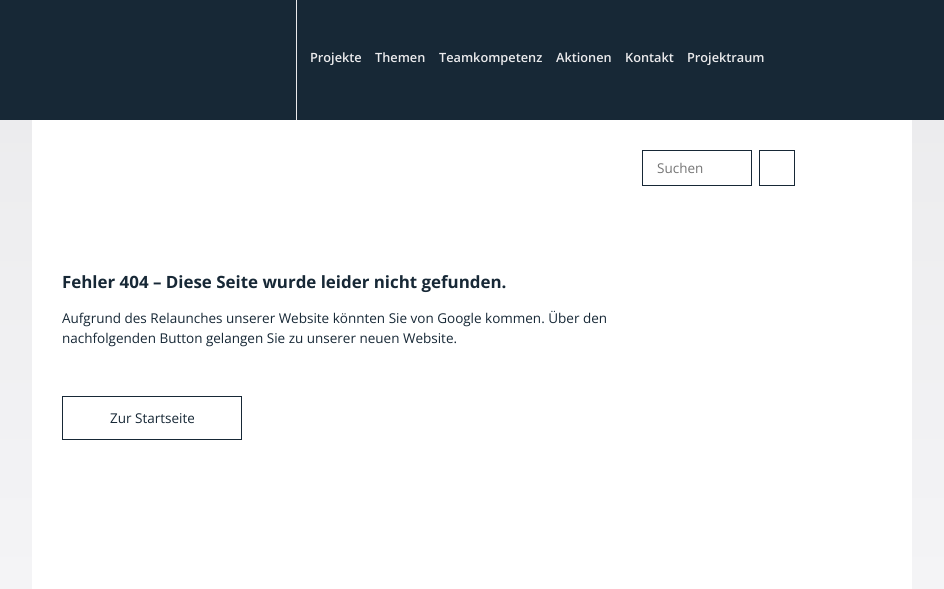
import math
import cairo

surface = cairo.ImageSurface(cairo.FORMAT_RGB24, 944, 589)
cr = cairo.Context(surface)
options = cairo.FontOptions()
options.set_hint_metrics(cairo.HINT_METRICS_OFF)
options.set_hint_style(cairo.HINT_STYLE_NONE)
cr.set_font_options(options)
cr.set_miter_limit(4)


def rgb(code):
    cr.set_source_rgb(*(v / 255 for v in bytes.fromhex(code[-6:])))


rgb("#ffffff")
cr.paint()
gradient = cairo.LinearGradient(472, 589, 472, 0)
gradient.add_color_stop_rgba(0, 0.957, 0.957, 0.965, 1)
gradient.add_color_stop_rgba(1, 0.918, 0.918, 0.925, 1)
cr.set_source(gradient)
cr.rectangle(0, 120, 944, 469)
cr.fill()
for x, y, w, h, color in [
    (0, 0, 944, 120, "#172836"),
    (296, 0, 1, 120, "#eaeaec"),
    (32, 120, 880, 469, "#ffffff"),
]:
    rgb(color)
    cr.rectangle(x, y, w, h)
    cr.fill()
cr.rectangle(642.5, 150.5, 109, 35)
rgb("#172836")
cr.set_line_width(1)
cr.stroke()
cr.rectangle(759.5, 150.5, 35, 35)
cr.stroke()
cr.rectangle(62.5, 396.5, 179, 43)
cr.stroke()
cr.select_font_face("Open Sans SemiBold")
cr.set_font_size(12.75)
rgb("#eaeaec")
for x, y, s in [
    (310, 62, "Projekte"),
    (375, 62, "Themen"),
    (439, 62, "Teamkompetenz"),
    (556, 62, "Aktionen"),
    (625, 62, "Kontakt"),
    (687, 62, "Projektraum"),
]:
    cr.move_to(x, y)
    cr.show_text(s)
cr.select_font_face("Open Sans")
cr.set_font_size(13.5)
rgb("#757575")
cr.move_to(657, 173)
cr.show_text("Suchen")
cr.select_font_face("Open Sans", cairo.FONT_SLANT_NORMAL, cairo.FONT_WEIGHT_BOLD)
cr.set_font_size(16.9)
rgb("#172836")
cr.move_to(62, 288)
cr.show_text("Fehler 404 – Diese Seite wurde leider nicht gefunden.")
cr.select_font_face("Open Sans")
cr.set_font_size(13.5)
for x, y, s in [
    (62, 323, "Aufgrund des Relaunches unserer Website könnten Sie von Google kommen. Über den"),
    (62, 343, "nachfolgenden Button gelangen Sie zu unserer neuen Website."),
    (110, 423, "Zur Startseite"),
]:
    cr.move_to(x, y)
    cr.show_text(s)
surface.write_to_png("page.png")
